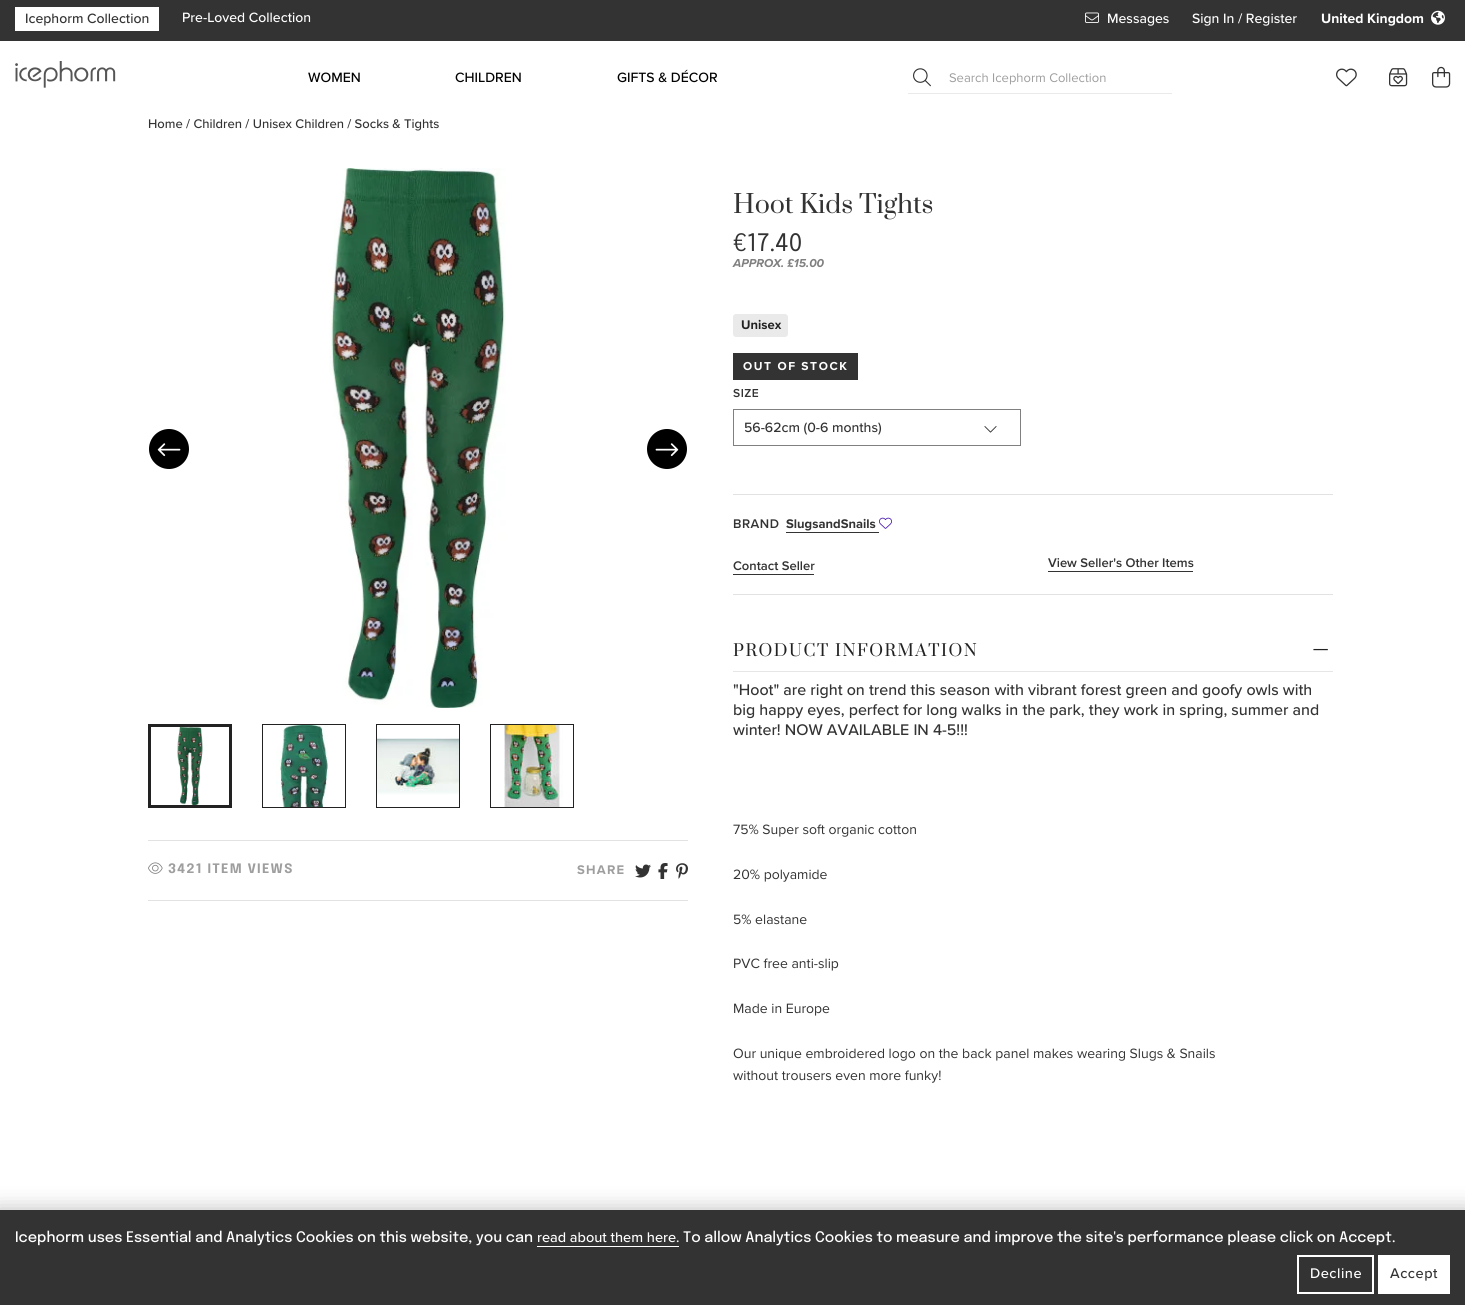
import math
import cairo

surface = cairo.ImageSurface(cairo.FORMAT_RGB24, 1465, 1305)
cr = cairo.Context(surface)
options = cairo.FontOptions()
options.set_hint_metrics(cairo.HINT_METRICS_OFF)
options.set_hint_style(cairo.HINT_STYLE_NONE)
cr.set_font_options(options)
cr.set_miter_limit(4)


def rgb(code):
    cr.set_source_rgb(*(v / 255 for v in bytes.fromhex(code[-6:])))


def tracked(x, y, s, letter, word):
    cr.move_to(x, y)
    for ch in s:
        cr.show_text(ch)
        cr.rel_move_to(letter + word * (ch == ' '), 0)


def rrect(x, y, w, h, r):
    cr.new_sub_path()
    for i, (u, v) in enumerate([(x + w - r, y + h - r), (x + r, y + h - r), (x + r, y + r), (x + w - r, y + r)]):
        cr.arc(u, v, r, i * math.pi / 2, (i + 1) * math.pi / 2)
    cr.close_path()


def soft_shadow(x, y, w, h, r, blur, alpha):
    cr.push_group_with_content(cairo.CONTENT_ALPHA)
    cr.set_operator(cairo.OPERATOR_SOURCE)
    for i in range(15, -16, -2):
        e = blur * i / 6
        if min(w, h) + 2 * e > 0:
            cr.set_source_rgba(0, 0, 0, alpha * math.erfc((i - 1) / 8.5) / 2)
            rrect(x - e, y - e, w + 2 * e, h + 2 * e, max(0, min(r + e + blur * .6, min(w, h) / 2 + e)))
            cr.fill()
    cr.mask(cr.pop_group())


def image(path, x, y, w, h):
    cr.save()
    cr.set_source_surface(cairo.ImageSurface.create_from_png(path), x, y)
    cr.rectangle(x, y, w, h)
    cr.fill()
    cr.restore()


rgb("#ffffff")
cr.paint()
rgb("#333333")
cr.rectangle(0, 0, 1465, 41)
cr.fill()
rgb("#ffffff")
cr.rectangle(15, 7, 144, 24)
cr.fill()
image("img/1.png", 1085, 12, 14, 11)
image("img/2.png", 1431, 10, 14, 15)
image("img/3.png", 15, 61, 101, 27)
rgb("#eaeaea")
cr.rectangle(908, 93, 264, 1)
cr.fill()
image("img/4.png", 913, 68, 18, 19)
image("img/5.png", 1336, 68, 21, 19)
image("img/6.png", 1389, 68, 19, 19)
image("img/7.png", 1432, 66, 19, 22)
image("img/8.png", 149, 429, 40, 40)
image("img/9.png", 329, 168, 177, 540)
image("img/10.png", 647, 429, 40, 40)
cr.rectangle(149.5, 725.5, 81, 81)
rgb("#222222")
cr.set_line_width(3)
cr.stroke()
image("img/11.png", 177, 727, 26, 78)
cr.rectangle(262.5, 724.5, 83, 83)
cr.set_line_width(1)
cr.stroke()
image("img/12.png", 276, 725, 52, 82)
cr.rectangle(376.5, 724.5, 83, 83)
cr.stroke()
image("img/13.png", 377, 738, 82, 57)
cr.rectangle(490.5, 724.5, 83, 83)
cr.stroke()
image("img/14.png", 504, 725, 59, 82)
rgb("#e2e2e2")
cr.rectangle(148, 840, 540, 1)
cr.fill()
image("img/15.png", 148, 862, 15, 12)
image("img/16.png", 635, 864, 16, 14)
image("img/17.png", 658, 863, 10, 16)
image("img/18.png", 676, 863, 12, 16)
cr.rectangle(148, 900, 540, 1)
cr.fill()
rgb("#eaeaea")
rrect(733, 314, 55, 23, 3)
cr.fill()
rgb("#333333")
cr.rectangle(733, 353, 125, 27)
cr.fill()
cr.rectangle(733.5, 409.5, 287, 36)
rgb("#808080")
cr.stroke()
image("img/19.png", 984, 426, 13, 7)
rgb("#e2e2e2")
cr.rectangle(733, 494, 600, 1)
cr.fill()
rgb("#333333")
cr.rectangle(786, 532, 93, 1)
cr.fill()
image("img/20.png", 879, 517, 13, 12)
for x, y, w, h, color in [
    (733, 574, 81, 1, "#333333"),
    (1048, 571, 145, 1, "#333333"),
    (733, 594, 600, 1, "#e2e2e2"),
    (733, 671, 600, 1, "#e6e6e6"),
]:
    rgb(color)
    cr.rectangle(x, y, w, h)
    cr.fill()
rgb("#000000")
soft_shadow(-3, 1209, 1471, 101, 0, 10.5, 0.25)
rgb("#333333")
cr.rectangle(0, 1210, 1465, 95)
cr.fill()
rgb("#ffffff")
cr.rectangle(537, 1246, 142, 1)
cr.fill()
cr.rectangle(1298, 1256, 75, 37)
cr.set_line_width(2)
cr.stroke()
cr.rectangle(1378, 1255, 72, 39)
cr.fill()
cr.select_font_face("Proxima Nova Medium")
cr.set_font_size(14)
rgb("#333333")
cr.move_to(25, 23)
cr.show_text("Icephorm Collection")
rgb("#ffffff")
for x, y, s in [
    (182, 22, "Pre-Loved Collection"),
    (1107, 23, "Messages"),
    (1192, 23, "Sign In / Register"),
]:
    cr.move_to(x, y)
    cr.show_text(s)
cr.select_font_face("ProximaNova", cairo.FONT_SLANT_NORMAL, cairo.FONT_WEIGHT_BOLD)
cr.move_to(1321, 23)
cr.show_text("United Kingdom")
cr.select_font_face("Proxima Nova Medium")
rgb("#000000")
for x, y, s in [
    (308, 82, "WOMEN"),
    (455, 82, "CHILDREN"),
    (617, 82, "GIFTS & DÉCOR"),
]:
    cr.move_to(x, y)
    cr.show_text(s)
cr.select_font_face("ProximaNova")
cr.set_font_size(13)
rgb("#9e9e9e")
cr.move_to(949, 82)
cr.show_text("Search Icephorm Collection")
cr.select_font_face("Proxima Nova Medium")
rgb("#333333")
cr.move_to(148, 128)
cr.show_text("Home / Children / Unisex Children / Socks & Tights")
cr.select_font_face("Epilogue", cairo.FONT_SLANT_NORMAL, cairo.FONT_WEIGHT_BOLD)
rgb("#9e9e9e")
tracked(168, 873, "3421 ITEM VIEWS", 1.25, 0)
cr.select_font_face("ProximaNova", cairo.FONT_SLANT_NORMAL, cairo.FONT_WEIGHT_BOLD)
tracked(577, 874, "SHARE", 1.25, 0)
cr.select_font_face("Prata")
cr.set_font_size(25)
rgb("#333333")
cr.move_to(733, 213)
cr.show_text("Hoot Kids Tights")
cr.select_font_face("Epilogue")
cr.set_font_size(24)
cr.move_to(733, 251)
cr.show_text("€17.40")
cr.select_font_face("ProximaNova", cairo.FONT_SLANT_ITALIC, cairo.FONT_WEIGHT_BOLD)
cr.set_font_size(12)
rgb("#808080")
cr.move_to(733, 267)
cr.show_text("APPROX. £15.00")
cr.select_font_face("ProximaNova", cairo.FONT_SLANT_NORMAL, cairo.FONT_WEIGHT_BOLD)
cr.set_font_size(13)
rgb("#222222")
cr.move_to(741, 329)
cr.show_text("Unisex")
cr.set_font_size(12)
rgb("#ffffff")
tracked(743, 370, "OUT OF STOCK", 1.6, 0)
cr.select_font_face("Proxima Nova SemiBold")
rgb("#333333")
tracked(733, 397, "SIZE", 0.5, 0)
cr.select_font_face("Proxima Nova Medium")
cr.set_font_size(14)
cr.move_to(744, 432)
cr.show_text("56-62cm (0-6 months)")
cr.select_font_face("Proxima Nova SemiBold")
cr.set_font_size(13)
tracked(733, 528, "BRAND", 0.5, 0)
cr.select_font_face("ProximaNova", cairo.FONT_SLANT_NORMAL, cairo.FONT_WEIGHT_BOLD)
cr.move_to(786, 528)
cr.show_text("SlugsandSnails")
cr.select_font_face("Proxima Nova SemiBold")
cr.move_to(733, 570)
cr.show_text("Contact Seller")
cr.move_to(1048, 567)
cr.show_text("View Seller's Other Items")
cr.select_font_face("Prata")
cr.set_font_size(16)
rgb("#222222")
tracked(733, 656, "PRODUCT INFORMATION", 1.5, 0)
cr.set_font_size(32)
tracked(1311, 661, "−", 1.5, 0)
cr.select_font_face("Proxima Nova Medium")
cr.set_font_size(16)
rgb("#333333")
for x, y, s in [
    (733, 695, "\"Hoot\" are right on trend this season with vibrant forest green and goofy owls with"),
    (733, 715, "big happy eyes, perfect for long walks in the park, they work in spring, summer and"),
    (733, 735, "winter! NOW AVAILABLE IN 4-5!!!"),
]:
    cr.move_to(x, y)
    cr.show_text(s)
cr.select_font_face("ProximaNova")
cr.set_font_size(14)
for x, y, s in [
    (733, 834, "75% Super soft organic cotton"),
    (733, 879, "20% polyamide"),
    (733, 924, "5% elastane"),
    (733, 968, "PVC free anti-slip"),
    (733, 1013, "Made in Europe"),
    (733, 1058, "Our unique embroidered logo on the back panel makes wearing Slugs & Snails"),
    (733, 1080, "without trousers even more funky!"),
]:
    cr.move_to(x, y)
    cr.show_text(s)
cr.select_font_face("Epilogue Medium")
cr.set_font_size(14.5)
rgb("#ffffff")
cr.move_to(15, 1242)
cr.show_text("Icephorm uses Essential and Analytics Cookies on this website, you can")
cr.select_font_face("Proxima Nova Medium")
cr.move_to(537, 1242)
cr.show_text("read about them here.")
cr.select_font_face("Epilogue Medium")
cr.move_to(683, 1242)
cr.show_text("To allow Analytics Cookies to measure and improve the site's performance please click on Accept.")
cr.select_font_face("Proxima Nova Medium")
tracked(1310, 1278, "Decline", 0.5, 0)
rgb("#333333")
tracked(1390, 1278, "Accept", 0.5, 0)
surface.write_to_png("page.png")
